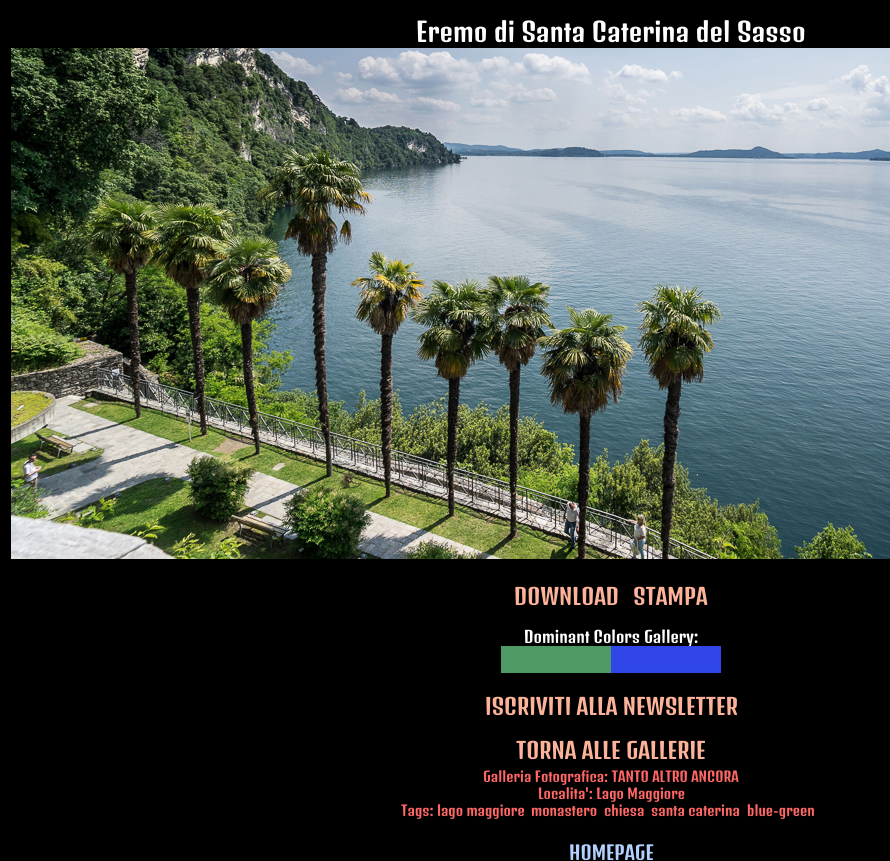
import math
import cairo

surface = cairo.ImageSurface(cairo.FORMAT_RGB24, 890, 861)
cr = cairo.Context(surface)
options = cairo.FontOptions()
options.set_hint_metrics(cairo.HINT_METRICS_OFF)
options.set_hint_style(cairo.HINT_STYLE_NONE)
cr.set_font_options(options)
cr.set_miter_limit(4)


def rgb(code):
    cr.set_source_rgb(*(v / 255 for v in bytes.fromhex(code[-6:])))


def image(path, x, y, w, h):
    cr.save()
    cr.set_source_surface(cairo.ImageSurface.create_from_png(path), x, y)
    cr.rectangle(x, y, w, h)
    cr.fill()
    cr.restore()


rgb("#000000")
cr.paint()
image("img/1.png", 11, 48, 879, 511)
cr.select_font_face("Denk One")
cr.set_font_size(26)
rgb("#ffffff")
cr.move_to(416, 42)
cr.show_text("Eremo di Santa Caterina del Sasso")
cr.set_font_size(22)
rgb("#fcb399")
cr.move_to(514, 605)
cr.show_text("DOWNLOAD")
cr.move_to(633, 605)
cr.show_text("STAMPA")
cr.set_font_size(16)
rgb("#ffffff")
cr.move_to(524, 643)
cr.show_text("Dominant Colors Gallery:")
image("img/2.png", 501, 646, 220, 30)
cr.set_font_size(22)
rgb("#fcb399")
cr.move_to(485, 715)
cr.show_text("ISCRIVITI ALLA NEWSLETTER")
cr.move_to(516, 759)
cr.show_text("TORNA ALLE GALLERIE")
cr.set_font_size(14)
rgb("#ff6666")
for x, y, s in [
    (483, 782, "Galleria Fotografica: TANTO ALTRO ANCORA"),
    (538, 799, "Localita': Lago Maggiore"),
    (401, 816, "Tags: lago maggiore"),
    (531, 816, "monastero"),
    (604, 816, "chiesa"),
    (651, 816, "santa caterina"),
    (747, 816, "blue-green"),
]:
    cr.move_to(x, y)
    cr.show_text(s)
cr.set_font_size(19)
rgb("#b3d1ff")
cr.move_to(569, 860)
cr.show_text("HOMEPAGE")
surface.write_to_png("page.png")
